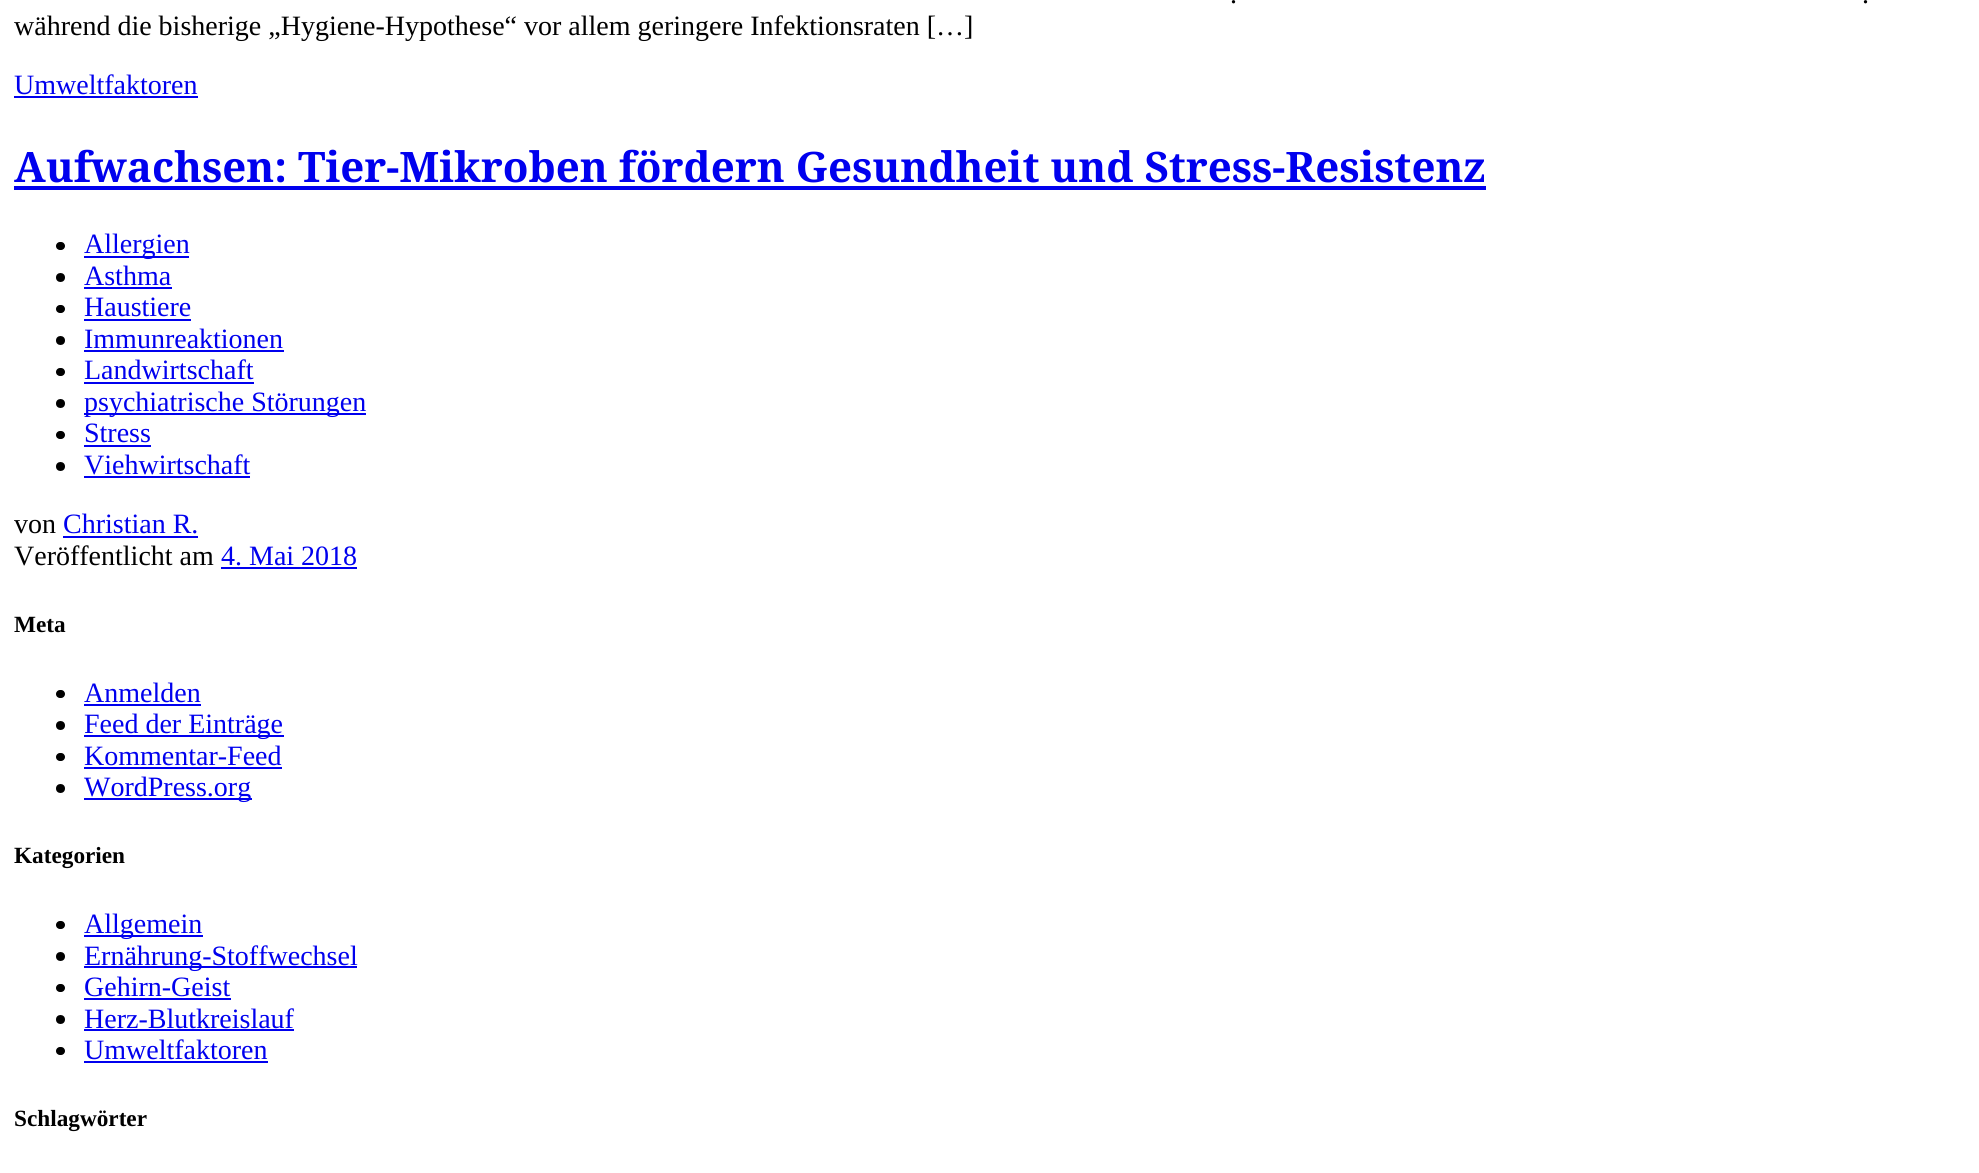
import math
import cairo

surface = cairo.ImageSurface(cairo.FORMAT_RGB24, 1979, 1173)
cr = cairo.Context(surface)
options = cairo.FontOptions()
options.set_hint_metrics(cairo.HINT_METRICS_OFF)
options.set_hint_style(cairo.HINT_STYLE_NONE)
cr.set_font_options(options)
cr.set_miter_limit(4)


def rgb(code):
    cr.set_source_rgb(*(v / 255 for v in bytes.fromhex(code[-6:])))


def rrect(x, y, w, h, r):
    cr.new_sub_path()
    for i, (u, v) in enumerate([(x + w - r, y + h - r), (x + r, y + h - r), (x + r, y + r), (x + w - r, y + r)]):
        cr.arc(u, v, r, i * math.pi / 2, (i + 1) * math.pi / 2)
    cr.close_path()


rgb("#ffffff")
cr.paint()
rgb("#0000ee")
cr.rectangle(14, 96, 184, 2)
cr.fill()
cr.rectangle(14, 186, 1472, 4)
cr.fill()
rgb("#000000")
rrect(56, 242, 9, 8, 4)
cr.fill()
rgb("#0000ee")
cr.rectangle(84, 256, 105, 2)
cr.fill()
rgb("#000000")
cr.arc(60.5, 277.5, 4.5, 0, 2 * math.pi)
cr.fill()
rgb("#0000ee")
cr.rectangle(84, 287, 88, 2)
cr.fill()
rgb("#000000")
rrect(56, 305, 9, 8, 4)
cr.fill()
rgb("#0000ee")
cr.rectangle(84, 319, 107, 2)
cr.fill()
rgb("#000000")
cr.arc(60.5, 340.5, 4.5, 0, 2 * math.pi)
cr.fill()
rgb("#0000ee")
cr.rectangle(84, 350, 200, 2)
cr.fill()
rgb("#000000")
rrect(56, 368, 9, 8, 4)
cr.fill()
rgb("#0000ee")
cr.rectangle(84, 382, 170, 2)
cr.fill()
rgb("#000000")
cr.arc(60.5, 403.5, 4.5, 0, 2 * math.pi)
cr.fill()
rgb("#0000ee")
cr.rectangle(84, 413, 282, 2)
cr.fill()
rgb("#000000")
rrect(56, 431, 9, 8, 4)
cr.fill()
rgb("#0000ee")
cr.rectangle(84, 445, 67, 2)
cr.fill()
rgb("#000000")
cr.arc(60.5, 466.5, 4.5, 0, 2 * math.pi)
cr.fill()
for x, y, w, h, color in [
    (84, 476, 166, 2, "#0000ee"),
    (63, 536, 135, 2, "#0000ee"),
    (221, 567, 136, 2, "#0000ee"),
]:
    rgb(color)
    cr.rectangle(x, y, w, h)
    cr.fill()
rgb("#000000")
rrect(56, 690, 9, 8, 4)
cr.fill()
rgb("#0000ee")
cr.rectangle(84, 704, 117, 2)
cr.fill()
rgb("#000000")
cr.arc(60.5, 725.5, 4.5, 0, 2 * math.pi)
cr.fill()
rgb("#0000ee")
cr.rectangle(84, 735, 200, 2)
cr.fill()
rgb("#000000")
rrect(56, 753, 9, 8, 4)
cr.fill()
rgb("#0000ee")
cr.rectangle(84, 767, 198, 2)
cr.fill()
rgb("#000000")
cr.arc(60.5, 788.5, 4.5, 0, 2 * math.pi)
cr.fill()
rgb("#0000ee")
cr.rectangle(84, 798, 168, 2)
cr.fill()
rgb("#000000")
rrect(56, 921, 9, 8, 4)
cr.fill()
rgb("#0000ee")
cr.rectangle(84, 935, 119, 2)
cr.fill()
rgb("#000000")
cr.arc(60.5, 956.5, 4.5, 0, 2 * math.pi)
cr.fill()
rgb("#0000ee")
cr.rectangle(84, 966, 273, 2)
cr.fill()
rgb("#000000")
rrect(56, 984, 9, 8, 4)
cr.fill()
rgb("#0000ee")
cr.rectangle(84, 998, 147, 2)
cr.fill()
rgb("#000000")
cr.arc(60.5, 1019.5, 4.5, 0, 2 * math.pi)
cr.fill()
rgb("#0000ee")
cr.rectangle(84, 1029, 210, 2)
cr.fill()
rgb("#000000")
rrect(56, 1047, 9, 8, 4)
cr.fill()
rgb("#0000ee")
cr.rectangle(84, 1061, 184, 2)
cr.fill()
cr.select_font_face("Liberation Serif")
cr.set_font_size(28)
rgb("#000000")
for x, y, s in [
    (1230, 3, "."),
    (1862, 3, "."),
    (14, 35, "während die bisherige „Hygiene-Hypothese“ vor allem geringere Infektionsraten […]"),
]:
    cr.move_to(x, y)
    cr.show_text(s)
rgb("#0000ee")
cr.move_to(14, 94)
cr.show_text("Umweltfaktoren")
cr.select_font_face("Noto Serif", cairo.FONT_SLANT_NORMAL, cairo.FONT_WEIGHT_BOLD)
cr.set_font_size(42)
cr.move_to(14, 182)
cr.show_text("Aufwachsen: Tier-Mikroben fördern Gesundheit und Stress-Resistenz")
cr.select_font_face("Liberation Serif")
cr.set_font_size(28)
for x, y, s in [
    (84, 253, "Allergien"),
    (84, 285, "Asthma"),
    (84, 316, "Haustiere"),
    (84, 348, "Immunreaktionen"),
    (84, 379, "Landwirtschaft"),
    (84, 411, "psychiatrische Störungen"),
    (84, 442, "Stress"),
    (84, 474, "Viehwirtschaft"),
]:
    cr.move_to(x, y)
    cr.show_text(s)
rgb("#000000")
cr.move_to(14, 533)
cr.show_text("von")
rgb("#0000ee")
cr.move_to(63, 533)
cr.show_text("Christian R.")
rgb("#000000")
cr.move_to(14, 565)
cr.show_text("Veröffentlicht am")
rgb("#0000ee")
cr.move_to(221, 565)
cr.show_text("4. Mai 2018")
cr.select_font_face("Liberation Serif", cairo.FONT_SLANT_NORMAL, cairo.FONT_WEIGHT_BOLD)
cr.set_font_size(23.25)
rgb("#000000")
cr.move_to(14, 632)
cr.show_text("Meta")
cr.select_font_face("Liberation Serif")
cr.set_font_size(28)
rgb("#0000ee")
for x, y, s in [
    (84, 702, "Anmelden"),
    (84, 733, "Feed der Einträge"),
    (84, 765, "Kommentar-Feed"),
    (84, 796, "WordPress.org"),
]:
    cr.move_to(x, y)
    cr.show_text(s)
cr.select_font_face("Liberation Serif", cairo.FONT_SLANT_NORMAL, cairo.FONT_WEIGHT_BOLD)
cr.set_font_size(23.25)
rgb("#000000")
cr.move_to(14, 863)
cr.show_text("Kategorien")
cr.select_font_face("Liberation Serif")
cr.set_font_size(28)
rgb("#0000ee")
for x, y, s in [
    (84, 933, "Allgemein"),
    (84, 965, "Ernährung-Stoffwechsel"),
    (84, 996, "Gehirn-Geist"),
    (84, 1028, "Herz-Blutkreislauf"),
    (84, 1059, "Umweltfaktoren"),
]:
    cr.move_to(x, y)
    cr.show_text(s)
cr.select_font_face("Liberation Serif", cairo.FONT_SLANT_NORMAL, cairo.FONT_WEIGHT_BOLD)
cr.set_font_size(23.25)
rgb("#000000")
cr.move_to(14, 1126)
cr.show_text("Schlagwörter")
surface.write_to_png("page.png")
